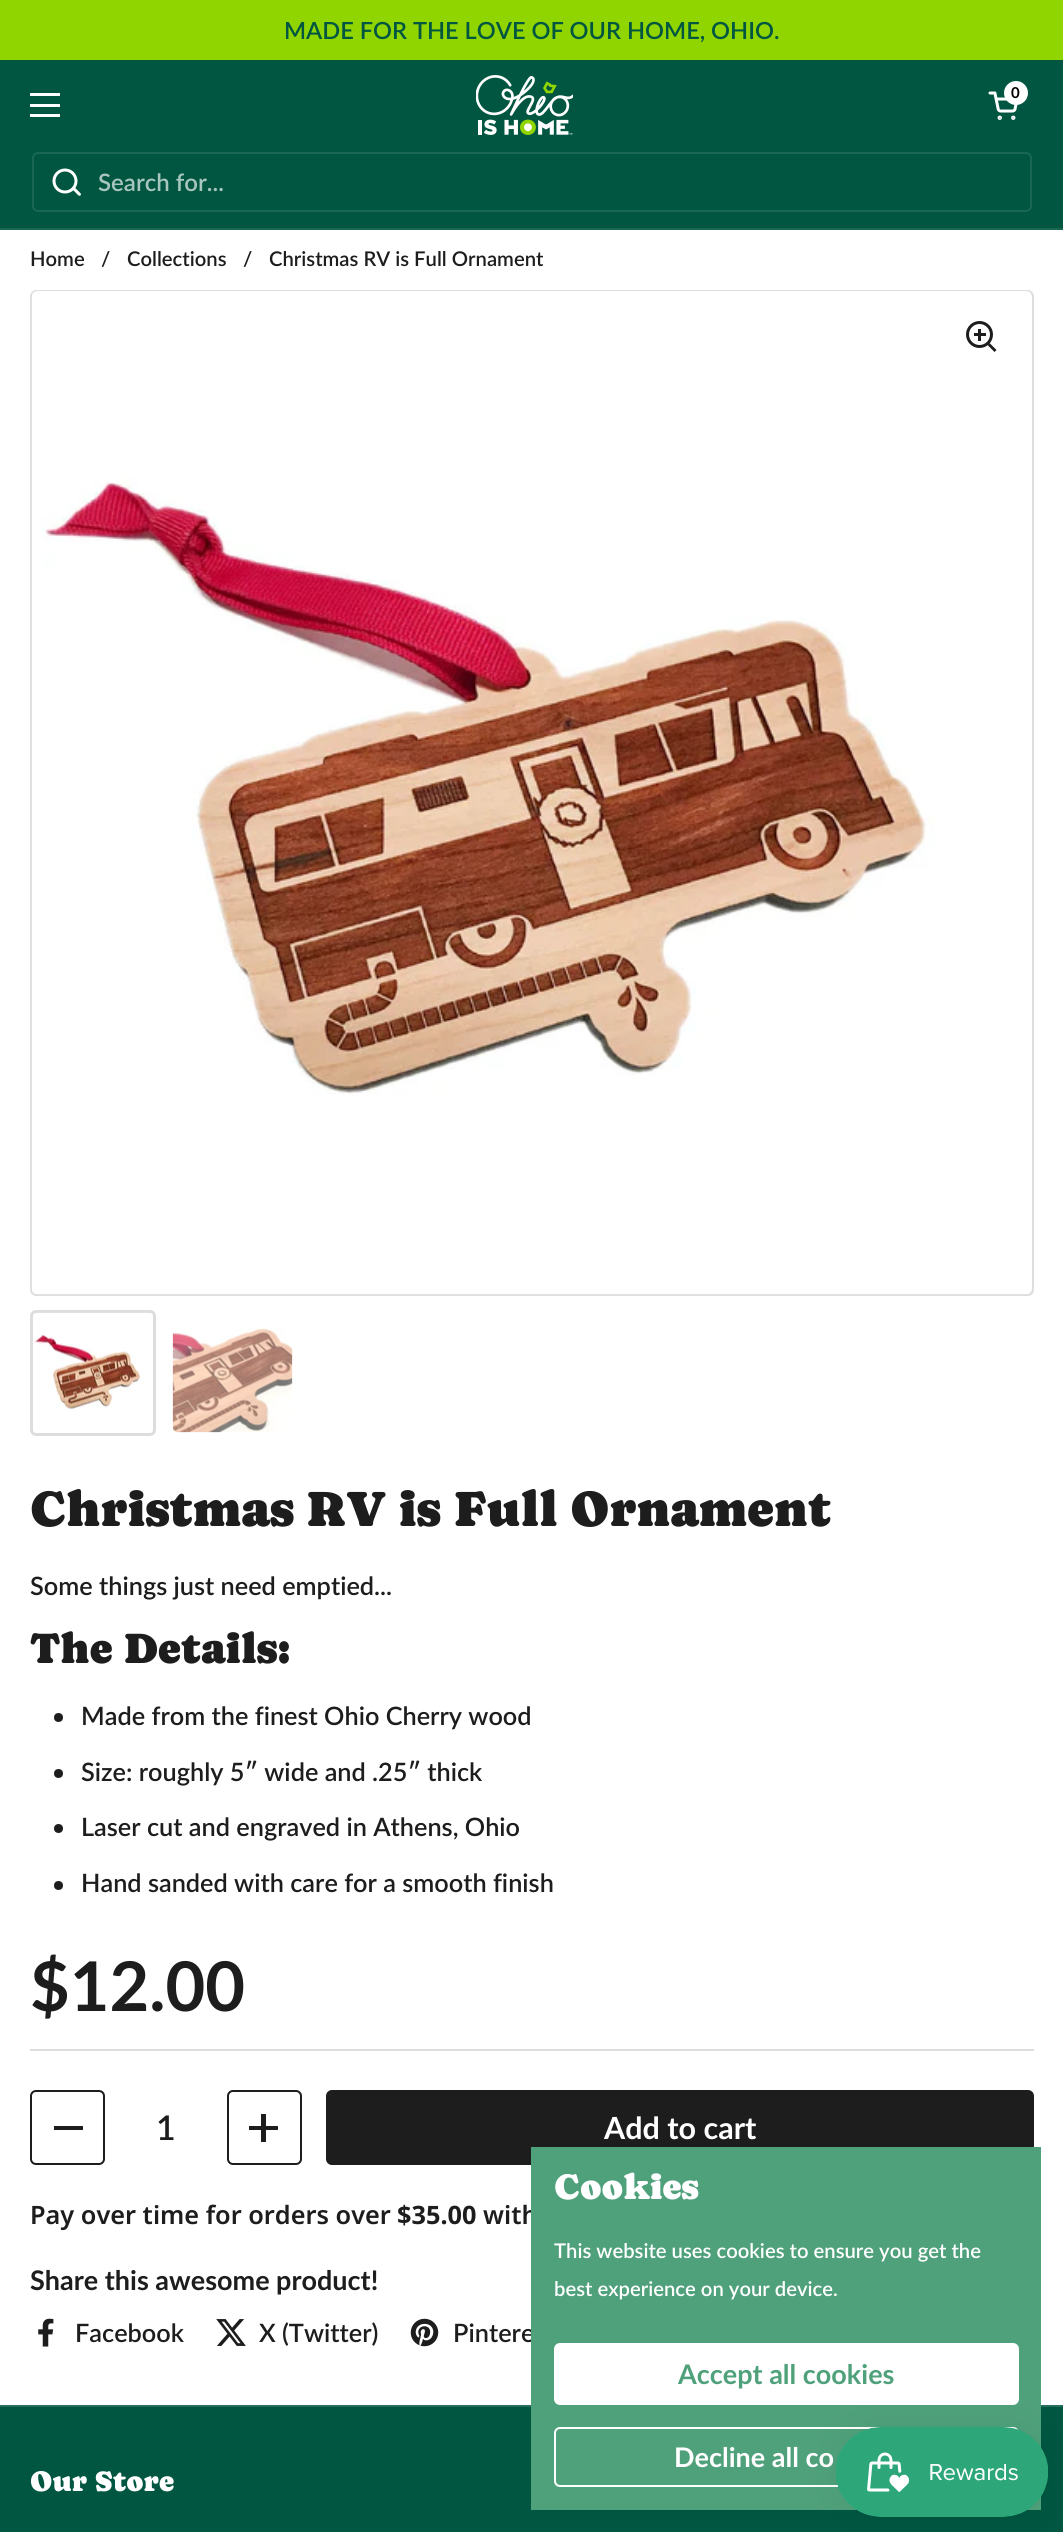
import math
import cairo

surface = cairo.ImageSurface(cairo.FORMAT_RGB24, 1063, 2532)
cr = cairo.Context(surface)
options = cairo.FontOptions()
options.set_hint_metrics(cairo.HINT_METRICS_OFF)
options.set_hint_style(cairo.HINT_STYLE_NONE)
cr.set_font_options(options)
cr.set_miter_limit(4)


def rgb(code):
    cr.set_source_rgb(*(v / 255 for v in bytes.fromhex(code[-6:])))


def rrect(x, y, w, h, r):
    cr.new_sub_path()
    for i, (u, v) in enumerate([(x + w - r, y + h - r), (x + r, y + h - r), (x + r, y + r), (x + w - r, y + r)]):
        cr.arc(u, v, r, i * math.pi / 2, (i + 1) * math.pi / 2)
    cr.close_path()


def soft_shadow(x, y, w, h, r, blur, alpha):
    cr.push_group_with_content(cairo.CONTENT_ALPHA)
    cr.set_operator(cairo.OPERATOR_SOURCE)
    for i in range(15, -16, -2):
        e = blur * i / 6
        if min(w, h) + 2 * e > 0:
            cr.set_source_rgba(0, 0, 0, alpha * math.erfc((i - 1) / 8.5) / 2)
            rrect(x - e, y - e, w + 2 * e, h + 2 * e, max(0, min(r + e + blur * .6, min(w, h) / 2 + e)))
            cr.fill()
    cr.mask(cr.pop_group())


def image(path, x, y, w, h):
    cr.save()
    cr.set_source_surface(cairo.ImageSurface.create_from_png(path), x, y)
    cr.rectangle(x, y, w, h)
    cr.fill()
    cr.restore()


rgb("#ffffff")
cr.paint()
for x, y, w, h, color in [
    (0, 0, 1063, 60, "#91d500"),
    (0, 60, 1063, 168, "#005641"),
    (30, 93, 30, 3, "#ffffff"),
    (30, 104, 30, 3, "#ffffff"),
    (30, 114, 30, 3, "#ffffff"),
]:
    rgb(color)
    cr.rectangle(x, y, w, h)
    cr.fill()
image("img/1.png", 476, 75, 97, 60)
image("img/2.png", 988, 91, 30, 29)
cr.arc(1016, 93, 12, 0, 2 * math.pi)
cr.fill()
rgb("#1a6754")
cr.rectangle(0, 228, 1063, 2)
cr.fill()
rrect(33, 153, 998, 58, 5)
cr.stroke()
image("img/3.png", 52, 168, 29, 28)
rgb("#dedede")
cr.new_path()
cr.move_to(36, 290)
cr.line_to(1028, 290)
cr.curve_to(1031, 290, 1034, 293, 1034, 296)
cr.line_to(1034, 1290)
cr.curve_to(1034, 1293, 1031, 1296, 1028, 1296)
cr.line_to(36, 1296)
cr.curve_to(33, 1296, 30, 1293, 30, 1290)
cr.line_to(30, 296)
cr.curve_to(30, 293, 33, 290, 36, 290)
cr.close_path()
cr.fill()
image("img/4.png", 31, 291, 1001, 1004)
cr.arc(979.5, 334.5, 12, 0, 2 * math.pi)
rgb("#1d1d1d")
cr.set_line_width(3)
cr.stroke()
cr.rectangle(978, 329, 3, 12)
cr.fill()
cr.rectangle(974, 333, 12, 3)
cr.fill()
cr.new_path()
cr.move_to(987.5, 345)
cr.line_to(989.5, 343)
cr.line_to(996.5, 350)
cr.line_to(994.5, 352)
cr.close_path()
cr.fill()
rrect(31.5, 1311.5, 123, 123, 4.5)
rgb("#dddddd")
cr.stroke()
image("img/5.png", 35, 1312, 112, 97)
image("img/6.png", 172, 1328, 121, 105)
rgb("#1d1d1d")
cr.arc(58.5, 1717.5, 4.5, 0, 2 * math.pi)
cr.fill()
cr.arc(58.5, 1773.5, 4.5, 0, 2 * math.pi)
cr.fill()
cr.arc(58.5, 1828.5, 4.5, 0, 2 * math.pi)
cr.fill()
cr.arc(58.5, 1885.5, 4.5, 0, 2 * math.pi)
cr.fill()
rgb("#dddddd")
cr.rectangle(30, 2049, 1004, 2)
cr.fill()
rrect(31, 2091, 73, 73, 5)
rgb("#1d1d1d")
cr.set_line_width(2)
cr.stroke()
cr.rectangle(54, 2126, 29, 4)
cr.fill()
rrect(228, 2091, 73, 73, 5)
cr.stroke()
cr.rectangle(261, 2114, 5, 28)
cr.fill()
cr.rectangle(249, 2126, 29, 4)
cr.fill()
rrect(327, 2091, 706, 73, 5)
cr.fill_preserve()
cr.stroke()
image("img/7.png", 38, 2318, 16, 29)
image("img/8.png", 216, 2319, 30, 27)
image("img/9.png", 410, 2318, 29, 29)
rgb("#005641")
cr.rectangle(0, 2407, 1063, 125)
cr.fill()
rgb("#266f5e")
cr.rectangle(0, 2405, 1063, 2)
cr.fill()
cr.select_font_face("Lato SemiBold")
cr.set_font_size(23.6)
rgb("#005641")
cr.move_to(284, 39)
cr.show_text("MADE FOR THE LOVE OF OUR HOME, OHIO.")
cr.select_font_face("Lato", cairo.FONT_SLANT_NORMAL, cairo.FONT_WEIGHT_BOLD)
cr.set_font_size(15)
rgb("#000000")
cr.move_to(1011, 98)
cr.show_text("0")
cr.select_font_face("Lato SemiBold")
cr.set_font_size(24)
rgb("#a8c6be")
cr.move_to(98, 191)
cr.show_text("Search for...")
cr.set_font_size(20.25)
rgb("#1d1d1d")
for x, y, s in [
    (30, 266, "Home"),
    (101, 266, "/"),
    (127, 266, "Collections"),
    (243, 266, "/"),
    (269, 266, "Christmas RV is Full Ornament"),
]:
    cr.move_to(x, y)
    cr.show_text(s)
cr.select_font_face("Caprasimo")
cr.set_font_size(50.4)
cr.move_to(30, 1526)
cr.show_text("Christmas RV is Full Ornament")
cr.select_font_face("Lato SemiBold")
cr.set_font_size(25.3)
cr.move_to(30, 1595)
cr.show_text("Some things just need emptied...")
cr.select_font_face("Caprasimo")
cr.set_font_size(43.25)
cr.move_to(30, 1663)
cr.show_text("The Details:")
cr.select_font_face("Lato SemiBold")
cr.set_font_size(25.3)
for x, y, s in [
    (81, 1725, "Made from the finest Ohio Cherry wood"),
    (81, 1781, "Size: roughly 5″ wide and .25″ thick"),
    (81, 1836, "Laser cut and engraved in Athens, Ohio"),
    (81, 1892, "Hand sanded with care for a smooth finish"),
]:
    cr.move_to(x, y)
    cr.show_text(s)
cr.select_font_face("Lato", cairo.FONT_SLANT_NORMAL, cairo.FONT_WEIGHT_BOLD)
cr.set_font_size(68.5)
cr.move_to(30, 2011)
cr.show_text("$12.00")
cr.select_font_face("Lato SemiBold")
cr.set_font_size(34)
cr.move_to(156, 2140)
cr.show_text("1")
cr.select_font_face("Lato", cairo.FONT_SLANT_NORMAL, cairo.FONT_WEIGHT_BOLD)
cr.set_font_size(30.5)
rgb("#ffffff")
cr.move_to(604, 2139)
cr.show_text("Add to cart")
cr.select_font_face("Noto Sans SemiBold")
cr.set_font_size(25.3)
rgb("#1d1d1d")
cr.move_to(30, 2224)
cr.show_text("Pay over time for orders over")
cr.select_font_face("Noto Sans", cairo.FONT_SLANT_NORMAL, cairo.FONT_WEIGHT_BOLD)
cr.move_to(397, 2224)
cr.show_text("$35.00")
cr.select_font_face("Noto Sans SemiBold")
cr.move_to(483, 2224)
cr.show_text("with")
cr.select_font_face("Lato", cairo.FONT_SLANT_NORMAL, cairo.FONT_WEIGHT_BOLD)
cr.set_font_size(27)
cr.move_to(30, 2290)
cr.show_text("Share this awesome product!")
cr.select_font_face("Lato SemiBold")
cr.set_font_size(25.3)
for x, y, s in [
    (75, 2342, "Facebook"),
    (259, 2342, "X (Twitter)"),
    (453, 2342, "Pintere"),
]:
    cr.move_to(x, y)
    cr.show_text(s)
rgb("#4fa17b")
cr.rectangle(531, 2147, 510, 363)
cr.fill()
cr.select_font_face("Caprasimo")
cr.set_font_size(36)
rgb("#ffffff")
cr.move_to(554, 2199)
cr.show_text("Cookies")
cr.select_font_face("Lato SemiBold")
cr.set_font_size(20.25)
cr.move_to(554, 2258)
cr.show_text("This website uses cookies to ensure you get the")
cr.move_to(554, 2296)
cr.show_text("best experience on your device.")
rrect(555, 2344, 463, 60, 5)
cr.fill_preserve()
cr.stroke()
cr.select_font_face("Lato", cairo.FONT_SLANT_NORMAL, cairo.FONT_WEIGHT_BOLD)
cr.set_font_size(27)
rgb("#4fa17b")
cr.move_to(678, 2384)
cr.show_text("Accept all cookies")
rrect(555, 2428, 463, 58, 5)
rgb("#ffffff")
cr.stroke()
cr.move_to(674, 2467)
cr.show_text("Decline all co")
cr.select_font_face("Caprasimo")
cr.set_font_size(28.75)
cr.move_to(30, 2491)
cr.show_text("Our Store")
rgb("#000000")
soft_shadow(836, 2427, 213, 90, 45, 19, 0.05)
image("img/10.png", 836, 2427, 213, 90)
surface.write_to_png("page.png")
